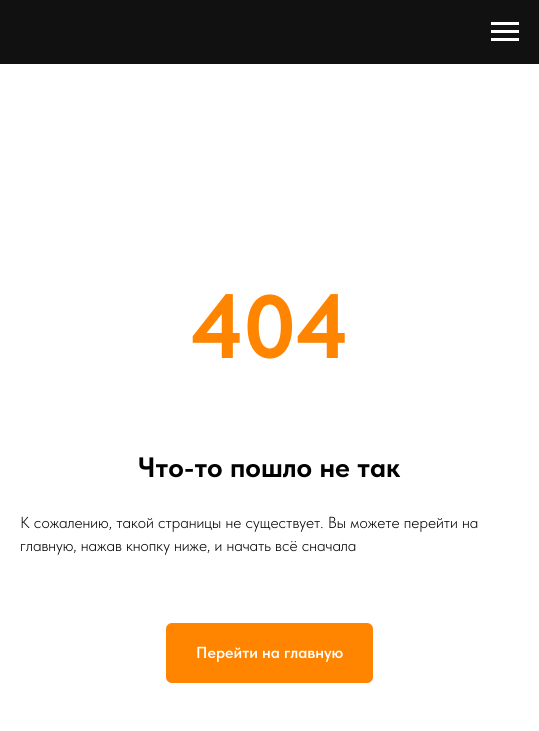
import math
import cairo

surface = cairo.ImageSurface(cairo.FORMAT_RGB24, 539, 731)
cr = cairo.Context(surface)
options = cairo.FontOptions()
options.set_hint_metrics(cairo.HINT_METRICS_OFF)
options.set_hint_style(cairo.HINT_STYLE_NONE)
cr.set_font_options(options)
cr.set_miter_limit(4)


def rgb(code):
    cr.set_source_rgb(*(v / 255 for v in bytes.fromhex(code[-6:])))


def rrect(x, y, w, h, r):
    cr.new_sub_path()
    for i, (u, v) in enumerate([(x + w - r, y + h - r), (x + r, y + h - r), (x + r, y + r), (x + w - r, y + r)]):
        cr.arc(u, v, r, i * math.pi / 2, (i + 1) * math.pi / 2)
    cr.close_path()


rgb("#ffffff")
cr.paint()
for x, y, w, h, color in [
    (0, 0, 539, 64, "#111111"),
    (491, 22, 28, 3, "#ffffff"),
    (491, 30, 28, 3, "#ffffff"),
    (491, 38, 28, 3, "#ffffff"),
]:
    rgb(color)
    cr.rectangle(x, y, w, h)
    cr.fill()
rgb("#ff8400")
rrect(166, 623, 207, 60, 6)
cr.fill()
cr.select_font_face("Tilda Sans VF", cairo.FONT_SLANT_NORMAL, cairo.FONT_WEIGHT_BOLD)
cr.set_font_size(90)
cr.move_to(191, 358)
cr.show_text("404")
cr.set_font_size(28)
rgb("#000000")
cr.move_to(138, 477)
cr.show_text("Что-то пошло не так")
cr.select_font_face("Tilda Sans VF Light")
cr.set_font_size(16)
cr.move_to(20, 528)
cr.show_text("К сожалению, такой страницы не существует. Вы можете перейти на")
cr.move_to(20, 551)
cr.show_text("главную, нажав кнопку ниже, и начать всё сначала")
cr.select_font_face("Tilda Sans VF SemiBold")
rgb("#ffffff")
cr.move_to(196, 658)
cr.show_text("Перейти на главную")
surface.write_to_png("page.png")
